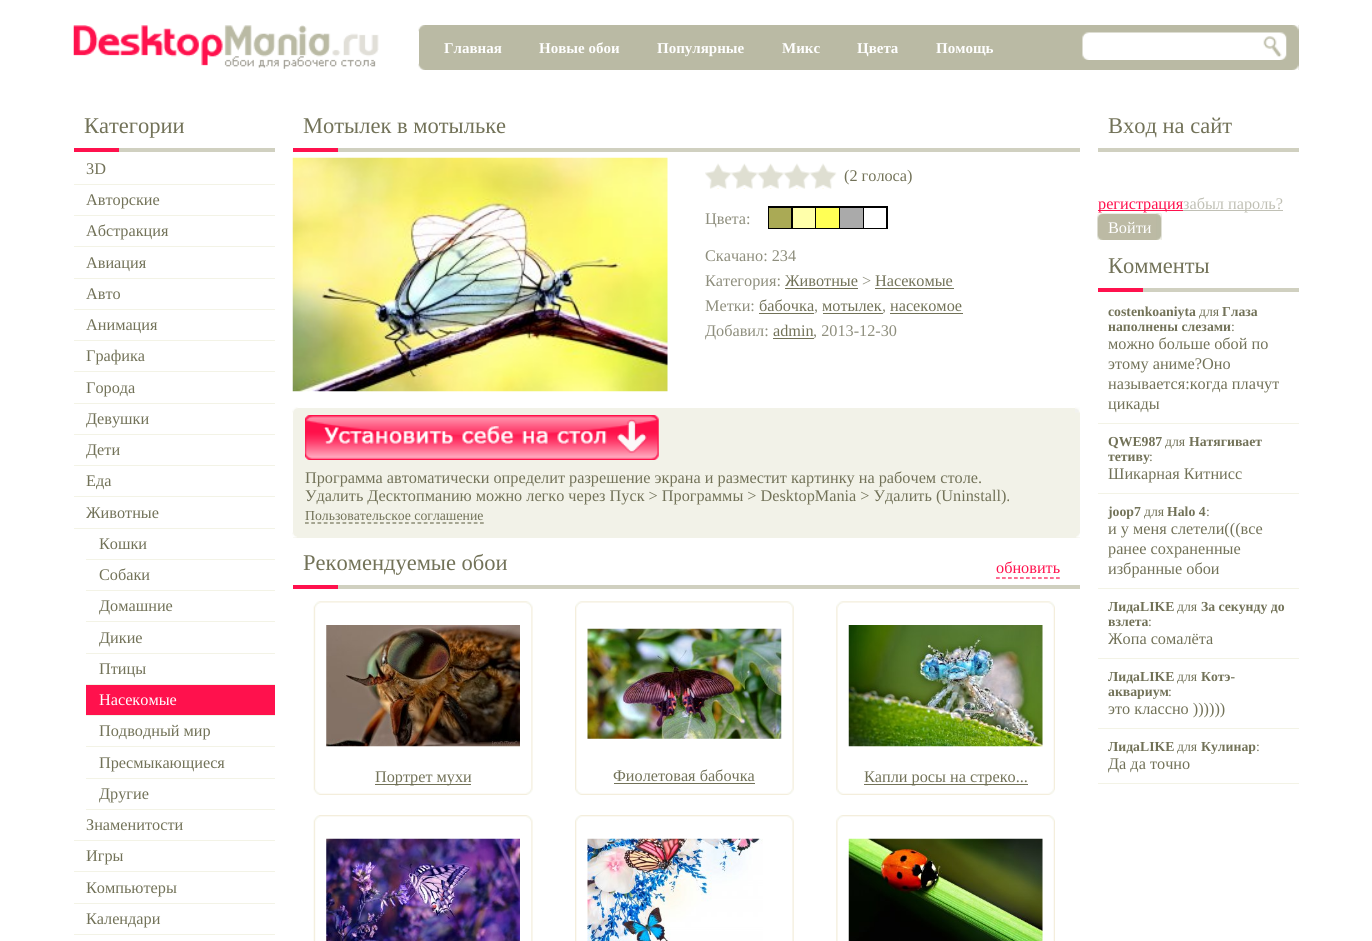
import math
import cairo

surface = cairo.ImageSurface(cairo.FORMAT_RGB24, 1372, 941)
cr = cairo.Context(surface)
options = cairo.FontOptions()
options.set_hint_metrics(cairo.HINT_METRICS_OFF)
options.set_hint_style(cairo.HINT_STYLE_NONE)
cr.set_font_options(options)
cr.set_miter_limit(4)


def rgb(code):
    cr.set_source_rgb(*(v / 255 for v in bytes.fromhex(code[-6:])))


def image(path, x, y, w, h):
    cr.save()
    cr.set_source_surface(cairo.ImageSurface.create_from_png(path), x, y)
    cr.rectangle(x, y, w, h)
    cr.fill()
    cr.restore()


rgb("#ffffff")
cr.paint()
image("img/1.png", 73, 25, 306, 44)
rgb("#babaa4")
cr.rectangle(419, 25, 880, 45)
cr.fill()
image("img/2.png", 418, 25, 7, 7)
image("img/3.png", 1292, 25, 7, 6)
image("img/4.png", 1082, 32, 205, 28)
rgb("#ffffff")
cr.rectangle(1092, 39, 105, 14)
cr.fill()
image("img/5.png", 418, 63, 7, 7)
image("img/6.png", 1292, 64, 7, 6)
for x, y, w, h, color in [
    (119, 148, 156, 4, "#d0d0c0"),
    (74, 148, 45, 4, "#ff114d"),
    (74, 184, 201, 1, "#f3f3e6"),
    (74, 215, 201, 1, "#f3f3e6"),
    (74, 246, 201, 1, "#f3f3e6"),
    (74, 278, 201, 1, "#f3f3e6"),
    (74, 309, 201, 1, "#f3f3e6"),
    (74, 340, 201, 1, "#f3f3e6"),
    (74, 371, 201, 1, "#f3f3e6"),
    (74, 403, 201, 1, "#f3f3e6"),
    (74, 434, 201, 1, "#f3f3e6"),
    (74, 465, 201, 1, "#f3f3e6"),
    (74, 496, 201, 1, "#f3f3e6"),
    (74, 528, 201, 1, "#f3f3e6"),
    (86, 559, 189, 1, "#f3f3e6"),
    (86, 590, 189, 1, "#f3f3e6"),
    (86, 621, 189, 1, "#f3f3e6"),
    (86, 653, 189, 1, "#f3f3e6"),
    (86, 684, 189, 1, "#f3f3e6"),
    (86, 685, 189, 30, "#ff114d"),
    (86, 715, 189, 1, "#f3f3e6"),
    (86, 746, 189, 1, "#f3f3e6"),
    (86, 778, 189, 1, "#f3f3e6"),
    (86, 809, 189, 1, "#f3f3e6"),
    (74, 840, 201, 1, "#f3f3e6"),
    (74, 871, 201, 1, "#f3f3e6"),
    (74, 903, 201, 1, "#f3f3e6"),
    (74, 934, 201, 1, "#f3f3e6"),
    (338, 148, 742, 4, "#d0d0c0"),
    (293, 148, 45, 4, "#ff114d"),
]:
    rgb(color)
    cr.rectangle(x, y, w, h)
    cr.fill()
image("img/7.png", 292, 157, 376, 235)
image("img/8.png", 705, 163, 132, 26)
for x, y, w, h, color in [
    (768, 206, 120, 23, "#000000"),
    (769, 208, 22, 20, "#aaaa55"),
    (793, 208, 22, 20, "#ffffaa"),
    (816, 208, 23, 20, "#ffff55"),
    (840, 208, 23, 20, "#aaaaaa"),
    (864, 208, 22, 20, "#ffffff"),
    (785, 288, 73, 1, "#727258"),
    (875, 288, 79, 1, "#727258"),
    (759, 313, 55, 1, "#727258"),
    (823, 313, 60, 1, "#727258"),
    (890, 313, 73, 1, "#727258"),
    (773, 338, 41, 1, "#727258"),
    (293, 408, 787, 130, "#f2f2e8"),
]:
    rgb(color)
    cr.rectangle(x, y, w, h)
    cr.fill()
image("img/9.png", 292, 407, 6, 6)
image("img/10.png", 1075, 407, 5, 6)
image("img/11.png", 305, 415, 354, 45)
cr.new_path()
cr.move_to(305, 523)
cr.line_to(484, 523)
rgb("#727258")
cr.set_line_width(1.2)
cr.set_dash([3.75, 2.5])
cr.stroke()
image("img/12.png", 292, 532, 5, 6)
image("img/13.png", 1076, 533, 4, 5)
rgb("#d0d0c0")
cr.rectangle(338, 585, 742, 4)
cr.fill()
cr.new_path()
cr.move_to(996, 578)
cr.line_to(1060, 578)
rgb("#fb114d")
cr.set_dash([3.75, 2.25])
cr.stroke()
rgb("#ff114d")
cr.rectangle(293, 585, 45, 4)
cr.fill()
image("img/14.png", 313, 601, 220, 194)
image("img/15.png", 326, 625, 194, 122)
rgb("#727258")
cr.rectangle(375, 784, 96, 1)
cr.fill()
image("img/16.png", 575, 601, 219, 194)
image("img/17.png", 587, 628, 195, 111)
cr.rectangle(614, 783, 141, 1)
cr.fill()
image("img/18.png", 836, 601, 219, 194)
image("img/19.png", 848, 625, 195, 122)
cr.rectangle(864, 784, 164, 1)
cr.fill()
image("img/20.png", 313, 815, 220, 126)
image("img/21.png", 326, 838, 194, 103)
image("img/22.png", 575, 815, 219, 126)
image("img/23.png", 587, 838, 176, 103)
image("img/24.png", 836, 815, 219, 126)
image("img/25.png", 848, 838, 195, 103)
for x, y, w, h, color in [
    (1098, 148, 201, 4, "#d0d0c0"),
    (1098, 210, 85, 1, "#ff114d"),
    (1183, 210, 100, 1, "#c0c0b5"),
]:
    rgb(color)
    cr.rectangle(x, y, w, h)
    cr.fill()
image("img/26.png", 1097, 213, 65, 27)
image("img/27.png", 1156, 213, 6, 27)
for x, y, w, h, color in [
    (1143, 288, 156, 4, "#d0d0c0"),
    (1098, 288, 45, 4, "#ff114d"),
    (1098, 423, 201, 1, "#f3f3e6"),
    (1098, 493, 201, 1, "#f3f3e6"),
    (1098, 588, 201, 1, "#f3f3e6"),
    (1098, 658, 201, 1, "#f3f3e6"),
    (1098, 728, 201, 1, "#f3f3e6"),
    (1098, 783, 201, 1, "#f3f3e6"),
]:
    rgb(color)
    cr.rectangle(x, y, w, h)
    cr.fill()
cr.select_font_face("Liberation Serif", cairo.FONT_SLANT_NORMAL, cairo.FONT_WEIGHT_BOLD)
cr.set_font_size(15)
rgb("#ffffff")
for x, y, s in [
    (444, 53, "Главная"),
    (539, 53, "Новые обои"),
    (657, 53, "Популярные"),
    (782, 53, "Микс"),
    (857, 53, "Цвета"),
    (936, 53, "Помощь"),
]:
    cr.move_to(x, y)
    cr.show_text(s)
cr.select_font_face("Liberation Serif")
cr.set_font_size(22.5)
rgb("#727258")
cr.move_to(84, 133)
cr.show_text("Категории")
cr.set_font_size(16.25)
for x, y, s in [
    (86, 174, "3D"),
    (86, 205, "Авторские"),
    (86, 236, "Абстракция"),
    (86, 268, "Авиация"),
    (86, 299, "Авто"),
    (86, 330, "Анимация"),
    (86, 361, "Графика"),
    (86, 393, "Города"),
    (86, 424, "Девушки"),
    (86, 455, "Дети"),
    (86, 486, "Еда"),
    (86, 518, "Животные"),
    (99, 549, "Кошки"),
    (99, 580, "Собаки"),
    (99, 611, "Домашние"),
    (99, 643, "Дикие"),
    (99, 674, "Птицы"),
]:
    cr.move_to(x, y)
    cr.show_text(s)
rgb("#ffffff")
cr.move_to(99, 705)
cr.show_text("Насекомые")
rgb("#727258")
for x, y, s in [
    (99, 736, "Подводный мир"),
    (99, 768, "Пресмыкающиеся"),
    (99, 799, "Другие"),
    (86, 830, "Знаменитости"),
    (86, 861, "Игры"),
    (86, 893, "Компьютеры"),
    (86, 924, "Календари"),
]:
    cr.move_to(x, y)
    cr.show_text(s)
cr.set_font_size(22.5)
cr.move_to(303, 133)
cr.show_text("Мотылек в мотыльке")
cr.set_font_size(16.25)
cr.move_to(844, 181)
cr.show_text("(2 голоса)")
rgb("#8e8e7d")
for x, y, s in [
    (705, 224, "Цвета:"),
    (705, 261, "Скачано: 234"),
    (705, 286, "Категория:"),
]:
    cr.move_to(x, y)
    cr.show_text(s)
rgb("#727258")
cr.move_to(785, 286)
cr.show_text("Животные")
rgb("#8e8e7d")
cr.move_to(862, 286)
cr.show_text(">")
rgb("#727258")
cr.move_to(875, 286)
cr.show_text("Насекомые")
rgb("#8e8e7d")
cr.move_to(705, 311)
cr.show_text("Метки:")
rgb("#727258")
cr.move_to(759, 311)
cr.show_text("бабочка")
rgb("#8e8e7d")
cr.move_to(814, 311)
cr.show_text(",")
rgb("#727258")
cr.move_to(822, 311)
cr.show_text("мотылек")
rgb("#8e8e7d")
cr.move_to(882, 311)
cr.show_text(",")
rgb("#727258")
cr.move_to(890, 311)
cr.show_text("насекомое")
rgb("#8e8e7d")
cr.move_to(705, 336)
cr.show_text("Добавил:")
rgb("#727258")
cr.move_to(773, 336)
cr.show_text("admin")
rgb("#8e8e7d")
cr.move_to(813, 336)
cr.show_text(", 2013-12-30")
rgb("#727258")
cr.move_to(305, 483)
cr.show_text("Программа автоматически определит разрешение экрана и разместит картинку на рабочем столе.")
cr.move_to(305, 501)
cr.show_text("Удалить Десктопманию можно легко через Пуск > Программы > DesktopMania > Удалить (Uninstall).")
cr.set_font_size(13.75)
cr.move_to(305, 520)
cr.show_text("Пользовательское соглашение")
cr.set_font_size(22.5)
cr.move_to(303, 570)
cr.show_text("Рекомендуемые обои")
cr.set_font_size(16.25)
rgb("#ff114d")
cr.move_to(996, 573)
cr.show_text("обновить")
rgb("#727258")
for x, y, s in [
    (375, 782, "Портрет мухи"),
    (613, 781, "Фиолетовая бабочка"),
    (864, 782, "Капли росы на стреко..."),
]:
    cr.move_to(x, y)
    cr.show_text(s)
cr.set_font_size(22.5)
cr.move_to(1108, 133)
cr.show_text("Вход на сайт")
cr.set_font_size(16.25)
rgb("#ff114d")
cr.move_to(1098, 209)
cr.show_text("регистрация")
rgb("#c0c0b5")
cr.move_to(1183, 209)
cr.show_text("забыл пароль?")
rgb("#ffffff")
cr.move_to(1108, 233)
cr.show_text("Войти")
cr.set_font_size(22.5)
rgb("#727258")
cr.move_to(1108, 273)
cr.show_text("Комменты")
cr.select_font_face("Liberation Serif", cairo.FONT_SLANT_NORMAL, cairo.FONT_WEIGHT_BOLD)
cr.set_font_size(13.75)
cr.move_to(1108, 316)
cr.show_text("costenkoaniyta")
cr.select_font_face("Liberation Serif")
cr.move_to(1199, 316)
cr.show_text("для")
cr.select_font_face("Liberation Serif", cairo.FONT_SLANT_NORMAL, cairo.FONT_WEIGHT_BOLD)
cr.move_to(1222, 316)
cr.show_text("Глаза")
cr.move_to(1108, 331)
cr.show_text("наполнены слезами")
cr.select_font_face("Liberation Serif")
cr.move_to(1231, 331)
cr.show_text(":")
cr.set_font_size(16.25)
for x, y, s in [
    (1108, 349, "можно больше обой по"),
    (1108, 369, "этому аниме?Оно"),
    (1108, 389, "называется:когда плачут"),
    (1108, 409, "цикады"),
]:
    cr.move_to(x, y)
    cr.show_text(s)
cr.select_font_face("Liberation Serif", cairo.FONT_SLANT_NORMAL, cairo.FONT_WEIGHT_BOLD)
cr.set_font_size(13.75)
cr.move_to(1108, 446)
cr.show_text("QWE987")
cr.select_font_face("Liberation Serif")
cr.move_to(1165, 446)
cr.show_text("для")
cr.select_font_face("Liberation Serif", cairo.FONT_SLANT_NORMAL, cairo.FONT_WEIGHT_BOLD)
cr.move_to(1189, 446)
cr.show_text("Натягивает")
cr.move_to(1108, 461)
cr.show_text("тетиву")
cr.select_font_face("Liberation Serif")
cr.move_to(1149, 461)
cr.show_text(":")
cr.set_font_size(16.25)
cr.move_to(1108, 479)
cr.show_text("Шикарная Китнисс")
cr.select_font_face("Liberation Serif", cairo.FONT_SLANT_NORMAL, cairo.FONT_WEIGHT_BOLD)
cr.set_font_size(13.75)
cr.move_to(1108, 516)
cr.show_text("joop7")
cr.select_font_face("Liberation Serif")
cr.move_to(1144, 516)
cr.show_text("для")
cr.select_font_face("Liberation Serif", cairo.FONT_SLANT_NORMAL, cairo.FONT_WEIGHT_BOLD)
cr.move_to(1167, 516)
cr.show_text("Halo 4")
cr.select_font_face("Liberation Serif")
cr.move_to(1206, 516)
cr.show_text(":")
cr.set_font_size(16.25)
for x, y, s in [
    (1108, 534, "и у меня слетели(((все"),
    (1108, 554, "ранее сохраненные"),
    (1108, 574, "избранные обои"),
]:
    cr.move_to(x, y)
    cr.show_text(s)
cr.select_font_face("Liberation Serif", cairo.FONT_SLANT_NORMAL, cairo.FONT_WEIGHT_BOLD)
cr.set_font_size(13.75)
cr.move_to(1108, 611)
cr.show_text("ЛидаLIKE")
cr.select_font_face("Liberation Serif")
cr.move_to(1177, 611)
cr.show_text("для")
cr.select_font_face("Liberation Serif", cairo.FONT_SLANT_NORMAL, cairo.FONT_WEIGHT_BOLD)
cr.move_to(1201, 611)
cr.show_text("За секунду до")
cr.move_to(1108, 626)
cr.show_text("взлета")
cr.select_font_face("Liberation Serif")
cr.move_to(1148, 626)
cr.show_text(":")
cr.set_font_size(16.25)
cr.move_to(1108, 644)
cr.show_text("Жопа сомалёта")
cr.select_font_face("Liberation Serif", cairo.FONT_SLANT_NORMAL, cairo.FONT_WEIGHT_BOLD)
cr.set_font_size(13.75)
cr.move_to(1108, 681)
cr.show_text("ЛидаLIKE")
cr.select_font_face("Liberation Serif")
cr.move_to(1177, 681)
cr.show_text("для")
cr.select_font_face("Liberation Serif", cairo.FONT_SLANT_NORMAL, cairo.FONT_WEIGHT_BOLD)
cr.move_to(1201, 681)
cr.show_text("Котэ-")
cr.move_to(1108, 696)
cr.show_text("аквариум")
cr.select_font_face("Liberation Serif")
cr.move_to(1168, 696)
cr.show_text(":")
cr.set_font_size(16.25)
cr.move_to(1108, 714)
cr.show_text("это классно ))))))")
cr.select_font_face("Liberation Serif", cairo.FONT_SLANT_NORMAL, cairo.FONT_WEIGHT_BOLD)
cr.set_font_size(13.75)
cr.move_to(1108, 751)
cr.show_text("ЛидаLIKE")
cr.select_font_face("Liberation Serif")
cr.move_to(1177, 751)
cr.show_text("для")
cr.select_font_face("Liberation Serif", cairo.FONT_SLANT_NORMAL, cairo.FONT_WEIGHT_BOLD)
cr.move_to(1201, 751)
cr.show_text("Кулинар")
cr.select_font_face("Liberation Serif")
cr.move_to(1256, 751)
cr.show_text(":")
cr.set_font_size(16.25)
cr.move_to(1108, 769)
cr.show_text("Да да точно")
surface.write_to_png("page.png")
